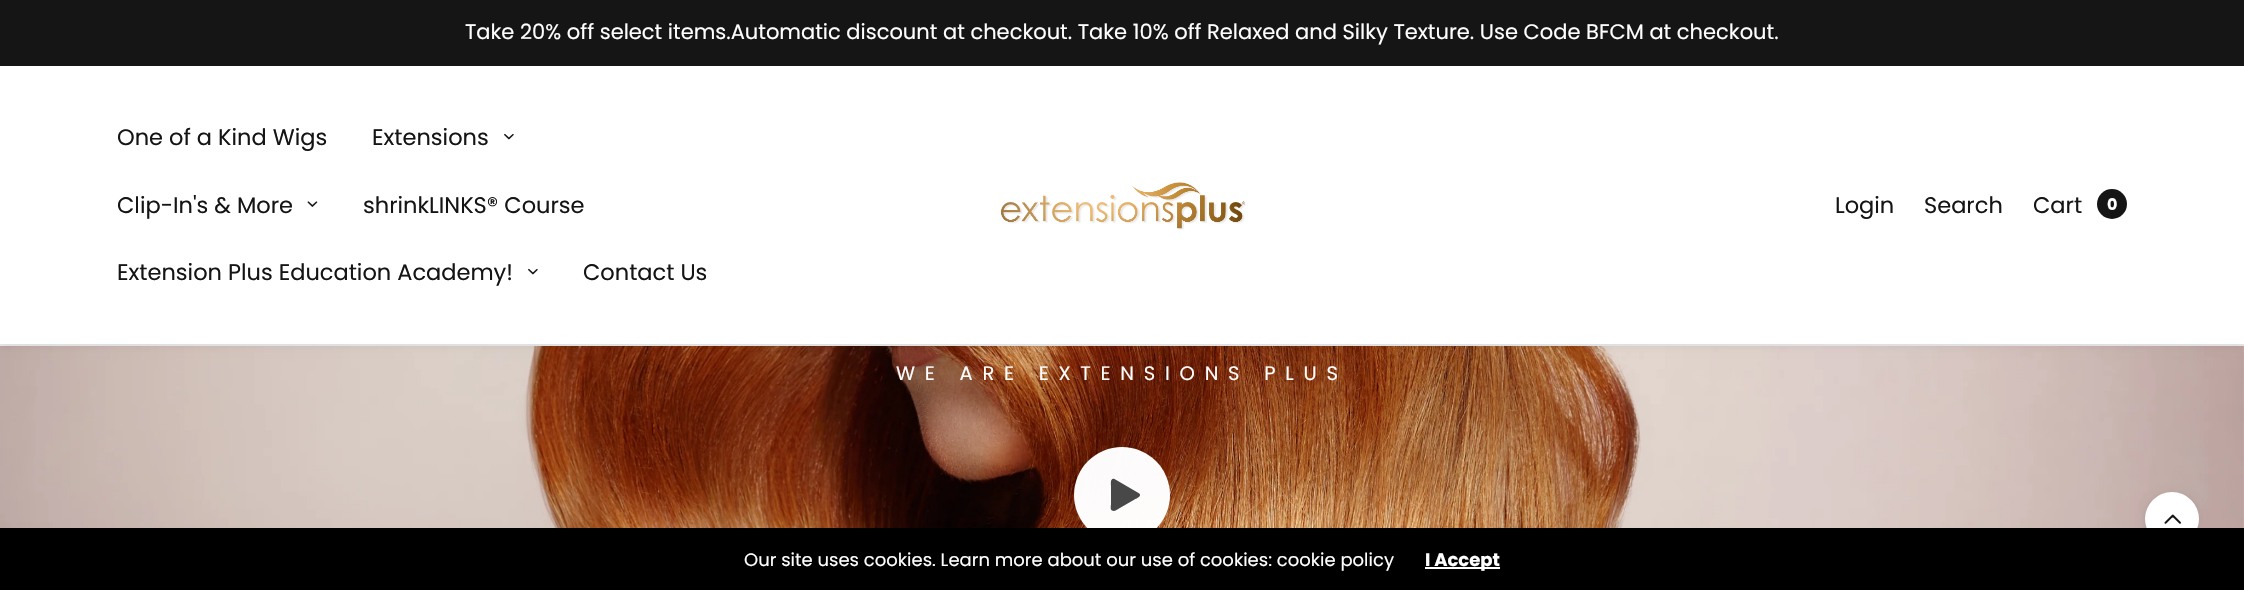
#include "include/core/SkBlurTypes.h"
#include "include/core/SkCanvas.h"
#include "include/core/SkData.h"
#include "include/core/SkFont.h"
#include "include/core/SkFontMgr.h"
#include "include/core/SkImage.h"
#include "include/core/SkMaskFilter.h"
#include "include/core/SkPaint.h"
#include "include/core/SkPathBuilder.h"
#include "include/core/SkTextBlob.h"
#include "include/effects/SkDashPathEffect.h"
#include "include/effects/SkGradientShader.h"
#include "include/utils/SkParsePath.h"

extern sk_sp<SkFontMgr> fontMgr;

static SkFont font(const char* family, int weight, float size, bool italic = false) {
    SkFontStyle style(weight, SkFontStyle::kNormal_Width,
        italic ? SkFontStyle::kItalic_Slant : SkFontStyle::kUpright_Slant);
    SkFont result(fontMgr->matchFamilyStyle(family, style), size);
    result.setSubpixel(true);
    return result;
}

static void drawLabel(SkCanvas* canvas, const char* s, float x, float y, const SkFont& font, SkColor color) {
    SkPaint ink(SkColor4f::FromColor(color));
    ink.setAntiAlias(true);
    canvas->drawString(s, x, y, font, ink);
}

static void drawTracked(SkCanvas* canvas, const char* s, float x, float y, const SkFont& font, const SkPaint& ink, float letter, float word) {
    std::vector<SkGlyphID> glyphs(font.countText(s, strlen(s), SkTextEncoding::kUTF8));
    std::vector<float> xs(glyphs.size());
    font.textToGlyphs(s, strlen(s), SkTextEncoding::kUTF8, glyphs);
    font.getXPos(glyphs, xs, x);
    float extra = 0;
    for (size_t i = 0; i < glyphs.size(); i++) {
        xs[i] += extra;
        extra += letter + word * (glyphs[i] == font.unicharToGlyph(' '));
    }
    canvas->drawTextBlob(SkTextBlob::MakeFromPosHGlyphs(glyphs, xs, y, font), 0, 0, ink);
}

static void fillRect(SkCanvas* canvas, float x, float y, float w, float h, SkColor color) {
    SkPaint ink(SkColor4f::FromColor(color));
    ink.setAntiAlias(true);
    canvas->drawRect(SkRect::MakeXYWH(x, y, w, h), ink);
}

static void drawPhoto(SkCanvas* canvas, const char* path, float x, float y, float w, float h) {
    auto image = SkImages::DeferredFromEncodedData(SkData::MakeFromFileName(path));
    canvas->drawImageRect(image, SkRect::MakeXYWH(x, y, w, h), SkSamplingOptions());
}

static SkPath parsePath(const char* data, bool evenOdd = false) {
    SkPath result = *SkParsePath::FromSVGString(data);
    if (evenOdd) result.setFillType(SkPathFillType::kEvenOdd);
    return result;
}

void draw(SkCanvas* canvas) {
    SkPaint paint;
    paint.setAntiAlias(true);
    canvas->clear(0xFFFFFFFF);
    fillRect(canvas, 0, 344, 2244, 2, 0xFFEAEAEA);
    drawPhoto(canvas, "assets/img4.png", 0, 346, 2244, 182);
    canvas->save();
    canvas->clipPath(parsePath("M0 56H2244V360H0ZM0 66H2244V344H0Z", true), true);
    paint.setColor(0x0F000000);
    paint.setMaskFilter(SkMaskFilter::MakeBlur(kNormal_SkBlurStyle, 4));
    canvas->drawRect(SkRect::MakeXYWH(0, 69, 2244, 278), paint);
    paint.setMaskFilter(nullptr);
    canvas->restore();
    fillRect(canvas, 0, 0, 2244, 66, 0xFF151515);
    SkFont font1 = font("Poppins", 400, 21);
    drawLabel(canvas, "Take 20% off select items.Automatic discount at checkout. Take 10% off Relaxed and Silky Texture. Use Code BFCM at checkout.", 465, 39, font1, 0xFFFFFFFF);
    SkFont font2 = font("Poppins", 400, 22.5f);
    drawLabel(canvas, "One of a Kind Wigs", 117, 145, font2, 0xFF151515);
    drawLabel(canvas, "Extensions", 372, 145, font2, 0xFF151515);
    drawPhoto(canvas, "assets/img1.png", 504, 133, 10, 7);
    drawLabel(canvas, "Clip-In's & More", 117, 213, font2, 0xFF151515);
    drawPhoto(canvas, "assets/img2.png", 307, 201, 11, 6);
    drawLabel(canvas, "shrinkLINKS® Course", 363, 213, font2, 0xFF151515);
    drawLabel(canvas, "Extension Plus Education Academy!", 117, 280, font2, 0xFF151515);
    drawPhoto(canvas, "assets/img1.png", 528, 268, 10, 7);
    drawLabel(canvas, "Contact Us", 583, 280, font2, 0xFF151515);
    drawPhoto(canvas, "assets/img3.png", 1000, 182, 246, 48);
    drawLabel(canvas, "Login", 1835, 213, font2, 0xFF151515);
    drawLabel(canvas, "Search", 1924, 213, font2, 0xFF151515);
    drawLabel(canvas, "Cart", 2033, 213, font2, 0xFF151515);
    paint.setColor(0xFF151515);
    canvas->drawCircle(2112, 204, 15, paint);
    SkFont font3 = font("Poppins", 700, 16);
    drawLabel(canvas, "0", 2107, 210, font3, 0xFFFFFFFF);
    SkFont font4 = font("Poppins", 400, 19.5f);
    paint.setColor(0xFFFFFFFF);
    drawTracked(canvas, "WE ARE EXTENSIONS PLUS", 896, 380, font4, paint, 9.75f, 0);
    paint.setColor(0xFAFFFFFF);
    canvas->drawCircle(1122, 495, 48, paint);
    paint.setColor(0xFF484848);
    canvas->drawPath(parsePath("M1138.5 493L1114.5 479C1110 477.5 1111 484 1111 486V504C1111 505.5 1110 509.5 1112 510.5C1114.5 512 1117 509.5 1119 508.5L1134.5 499.5C1136 498.5 1140.5 497 1140 494.5C1139.5 494 1139 493 1138.5 493Z"), paint);
    paint.setColor(0x1A000000);
    paint.setMaskFilter(SkMaskFilter::MakeBlur(kNormal_SkBlurStyle, 4.5f));
    canvas->drawRoundRect(SkRect::MakeXYWH(2145, 494, 54, 54), 27, 27, paint);
    paint.setMaskFilter(nullptr);
    paint.setColor(0xFFFFFFFF);
    canvas->drawCircle(2172, 519, 27, paint);
    fillRect(canvas, 0, 528, 2244, 62, 0xFF000000);
    SkFont font5 = font("Poppins", 400, 18);
    drawLabel(canvas, "Our site uses cookies. Learn more about our use of cookies: cookie policy", 744, 566, font5, 0xFFFFFFFF);
    fillRect(canvas, 1425, 567, 75, 2, 0xFFFFFFFF);
    SkFont font6 = font("Poppins", 700, 18);
    drawLabel(canvas, "I Accept", 1425, 566, font6, 0xFFFFFFFF);
    drawPhoto(canvas, "assets/img5.png", 2164, 514, 17, 10);
}
